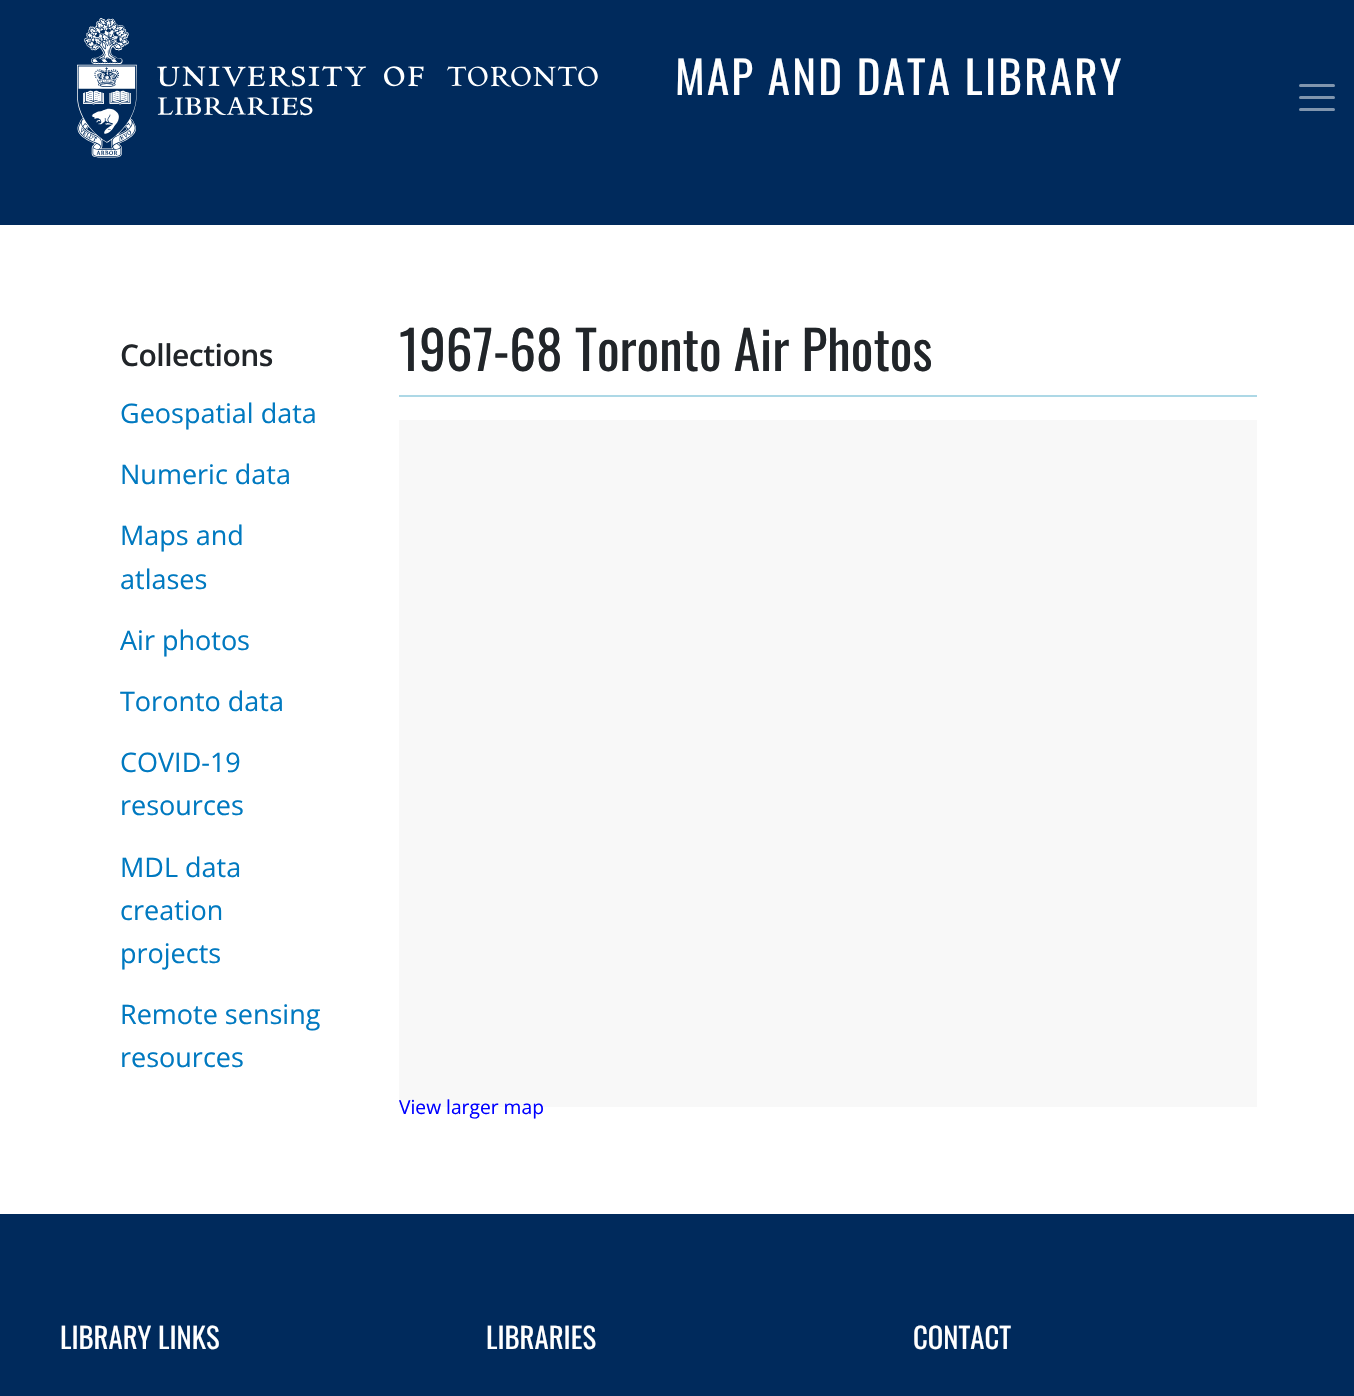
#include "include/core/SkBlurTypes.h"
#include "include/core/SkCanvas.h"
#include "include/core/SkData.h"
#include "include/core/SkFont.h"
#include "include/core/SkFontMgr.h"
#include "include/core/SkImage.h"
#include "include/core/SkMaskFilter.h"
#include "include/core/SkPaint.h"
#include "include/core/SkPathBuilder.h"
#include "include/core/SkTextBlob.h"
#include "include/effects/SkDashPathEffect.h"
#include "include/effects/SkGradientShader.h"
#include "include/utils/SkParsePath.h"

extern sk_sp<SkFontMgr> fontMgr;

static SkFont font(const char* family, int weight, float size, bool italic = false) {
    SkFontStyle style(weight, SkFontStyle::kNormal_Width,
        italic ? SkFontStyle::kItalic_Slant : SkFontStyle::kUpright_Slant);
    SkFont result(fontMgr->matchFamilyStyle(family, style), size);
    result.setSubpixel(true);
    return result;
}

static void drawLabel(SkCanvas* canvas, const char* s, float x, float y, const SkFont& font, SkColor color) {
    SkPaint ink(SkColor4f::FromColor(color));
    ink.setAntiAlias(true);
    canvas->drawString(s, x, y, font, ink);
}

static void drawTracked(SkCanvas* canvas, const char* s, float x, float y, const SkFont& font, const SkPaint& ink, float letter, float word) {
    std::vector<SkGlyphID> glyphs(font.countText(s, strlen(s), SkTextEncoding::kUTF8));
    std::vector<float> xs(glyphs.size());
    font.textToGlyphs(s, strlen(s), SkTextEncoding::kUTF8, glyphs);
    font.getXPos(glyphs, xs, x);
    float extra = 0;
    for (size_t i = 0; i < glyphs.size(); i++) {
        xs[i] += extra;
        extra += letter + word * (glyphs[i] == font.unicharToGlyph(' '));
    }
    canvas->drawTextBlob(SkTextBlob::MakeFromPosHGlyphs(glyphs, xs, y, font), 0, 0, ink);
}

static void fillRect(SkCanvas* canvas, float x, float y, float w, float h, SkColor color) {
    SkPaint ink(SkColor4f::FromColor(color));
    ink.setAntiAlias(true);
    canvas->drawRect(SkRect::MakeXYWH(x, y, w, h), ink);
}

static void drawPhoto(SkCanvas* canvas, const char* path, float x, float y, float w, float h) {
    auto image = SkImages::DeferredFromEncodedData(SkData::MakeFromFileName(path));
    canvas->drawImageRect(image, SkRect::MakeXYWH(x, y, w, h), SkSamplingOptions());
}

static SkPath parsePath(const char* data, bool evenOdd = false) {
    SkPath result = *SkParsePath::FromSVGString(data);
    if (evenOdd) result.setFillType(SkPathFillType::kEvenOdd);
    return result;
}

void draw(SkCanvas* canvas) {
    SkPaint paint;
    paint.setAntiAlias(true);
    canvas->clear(0xFFFFFFFF);
    fillRect(canvas, 0, 0, 1354, 225, 0xFF002A5C);
    drawPhoto(canvas, "assets/img1.png", 77, 18, 521, 140);
    SkFont font1 = font("Oswald", 400, 45);
    paint.setColor(0xFFFFFFFF);
    drawTracked(canvas, "MAP AND DATA LIBRARY", 675, 95, font1, paint, 2.25f, 0);
    paint.setStroke(true);
    paint.setStrokeWidth(3);
    paint.setStrokeCap(SkPaint::kRound_Cap);
    paint.setColor(0xFF8095AE);
    canvas->drawPath(parsePath("M1300.5 85.5H1333.5M1300.5 97.5H1333.5M1300.5 109.5H1333.5"), paint);
    SkFont font2 = font("Open Sans", 600, 30);
    paint.setStroke(false);
    paint.setColor(0xFF212529);
    drawTracked(canvas, "Collections", 120, 366, font2, paint, -0.5f, 0);
    SkFont font3 = font("Open Sans", 400, 27);
    drawLabel(canvas, "Geospatial data", 120, 423, font3, 0xFF0079C0);
    drawLabel(canvas, "Numeric data", 120, 484, font3, 0xFF0079C0);
    drawLabel(canvas, "Maps and", 120, 545, font3, 0xFF0079C0);
    drawLabel(canvas, "atlases", 120, 589, font3, 0xFF0079C0);
    drawLabel(canvas, "Air photos", 120, 650, font3, 0xFF0079C0);
    drawLabel(canvas, "Toronto data", 120, 711, font3, 0xFF0079C0);
    drawLabel(canvas, "COVID-19", 120, 772, font3, 0xFF0079C0);
    drawLabel(canvas, "resources", 120, 815, font3, 0xFF0079C0);
    drawLabel(canvas, "MDL data", 120, 877, font3, 0xFF0079C0);
    drawLabel(canvas, "creation", 120, 920, font3, 0xFF0079C0);
    drawLabel(canvas, "projects", 120, 963, font3, 0xFF0079C0);
    drawLabel(canvas, "Remote sensing", 120, 1024, font3, 0xFF0079C0);
    drawLabel(canvas, "resources", 120, 1067, font3, 0xFF0079C0);
    fillRect(canvas, 399, 395, 858, 2, 0xFFADD8E6);
    SkFont font4 = font("Oswald", 400, 53.25f);
    drawLabel(canvas, "1967-68 Toronto Air Photos", 399, 371, font4, 0xFF212529);
    fillRect(canvas, 399, 420, 858, 687, 0xFFF8F8F8);
    SkFont font5 = font("Open Sans", 400, 19.25f);
    drawLabel(canvas, "View larger map", 399, 1114, font5, 0xFF0000FF);
    fillRect(canvas, 0, 1214, 1354, 182, 0xFF002A5C);
    SkFont font6 = font("Oswald", 400, 28.75f);
    drawLabel(canvas, "LIBRARY LINKS", 60, 1349, font6, 0xFFFFFFFF);
    drawLabel(canvas, "LIBRARIES", 486, 1349, font6, 0xFFFFFFFF);
    drawLabel(canvas, "CONTACT", 913, 1349, font6, 0xFFFFFFFF);
}
